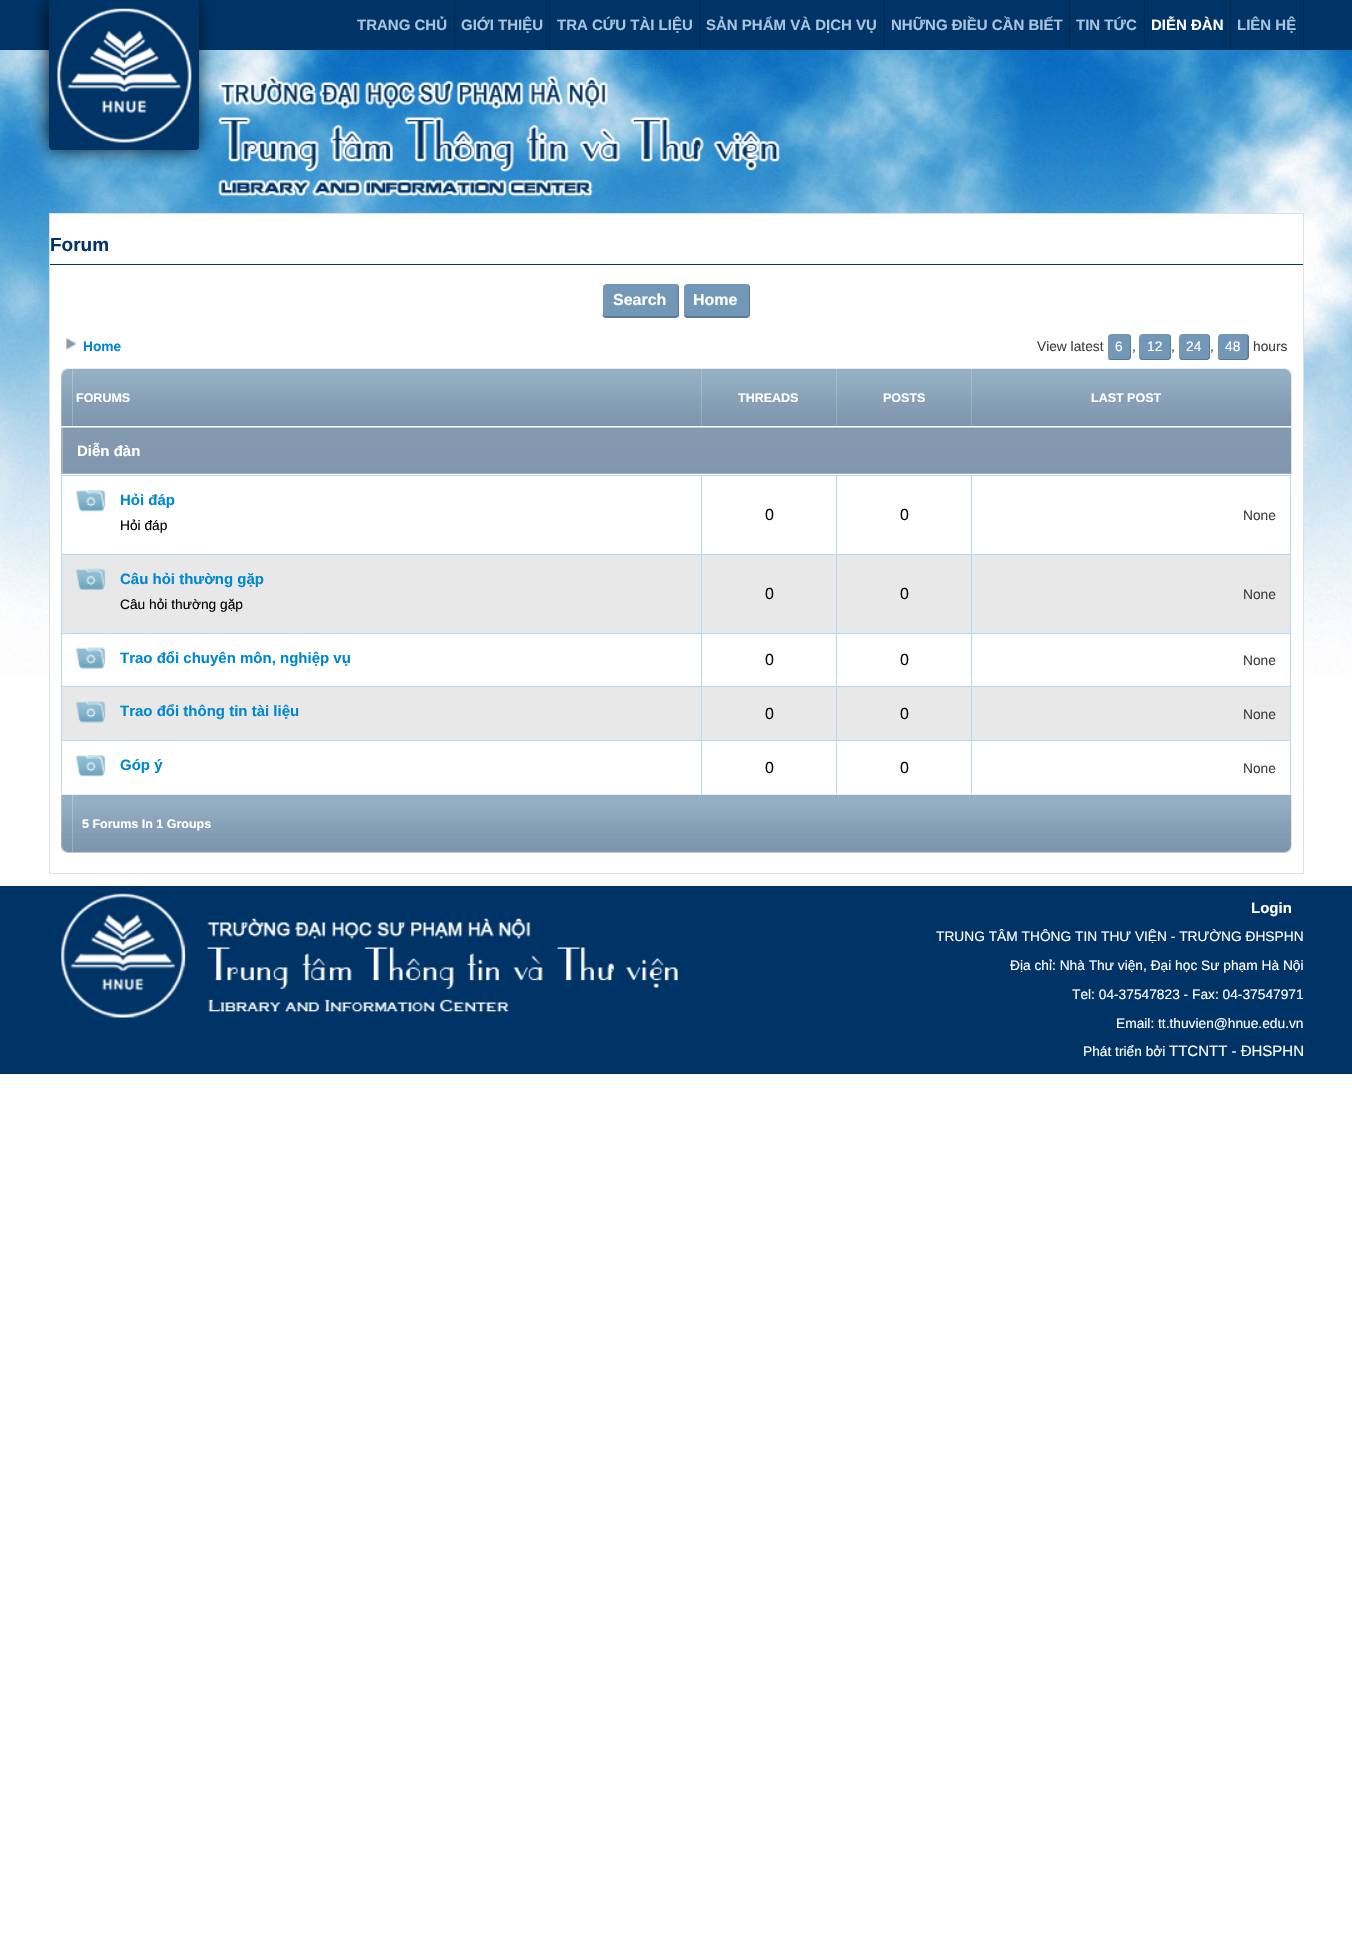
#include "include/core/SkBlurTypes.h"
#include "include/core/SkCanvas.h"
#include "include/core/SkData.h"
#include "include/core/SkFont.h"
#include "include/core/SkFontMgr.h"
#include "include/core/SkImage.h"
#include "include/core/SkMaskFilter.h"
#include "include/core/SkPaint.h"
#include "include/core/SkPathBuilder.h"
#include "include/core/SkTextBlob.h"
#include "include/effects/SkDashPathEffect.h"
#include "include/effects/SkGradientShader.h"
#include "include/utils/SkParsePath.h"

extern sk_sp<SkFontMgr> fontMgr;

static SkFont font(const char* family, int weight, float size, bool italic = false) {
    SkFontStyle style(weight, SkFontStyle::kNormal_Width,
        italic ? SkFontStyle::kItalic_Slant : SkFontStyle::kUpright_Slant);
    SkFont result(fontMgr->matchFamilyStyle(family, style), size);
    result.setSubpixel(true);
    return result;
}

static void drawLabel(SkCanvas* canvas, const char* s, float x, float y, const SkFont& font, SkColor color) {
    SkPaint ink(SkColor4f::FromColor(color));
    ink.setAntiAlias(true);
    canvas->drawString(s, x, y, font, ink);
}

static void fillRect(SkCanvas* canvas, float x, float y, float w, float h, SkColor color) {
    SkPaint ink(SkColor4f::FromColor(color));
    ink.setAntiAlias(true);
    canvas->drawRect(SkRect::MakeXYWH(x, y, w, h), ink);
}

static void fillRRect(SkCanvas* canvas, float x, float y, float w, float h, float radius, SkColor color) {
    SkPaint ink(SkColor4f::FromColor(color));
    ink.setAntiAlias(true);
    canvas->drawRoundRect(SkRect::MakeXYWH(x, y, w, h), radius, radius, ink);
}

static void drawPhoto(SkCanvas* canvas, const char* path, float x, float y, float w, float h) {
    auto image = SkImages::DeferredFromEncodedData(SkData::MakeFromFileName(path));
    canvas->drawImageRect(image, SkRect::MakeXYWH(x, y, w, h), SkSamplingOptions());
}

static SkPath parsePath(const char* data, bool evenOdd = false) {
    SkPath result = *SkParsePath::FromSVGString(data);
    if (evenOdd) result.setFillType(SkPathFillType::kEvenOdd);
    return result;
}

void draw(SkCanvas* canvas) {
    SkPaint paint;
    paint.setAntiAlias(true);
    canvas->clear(0xFFFFFFFF);
    fillRect(canvas, 0, 0, 1352, 50, 0xFF003366);
    drawPhoto(canvas, "assets/img2.png", 0, 50, 1352, 625);
    drawPhoto(canvas, "assets/img3.png", 218, 76, 563, 121);
    paint.setColor(0xFF000000);
    paint.setMaskFilter(SkMaskFilter::MakeBlur(kNormal_SkBlurStyle, 9.5f));
    canvas->drawRoundRect(SkRect::MakeXYWH(50, 3, 145, 145), 1, 1, paint);
    paint.setMaskFilter(nullptr);
    fillRRect(canvas, 49, 0, 150, 150, 4, 0xFF003366);
    drawPhoto(canvas, "assets/img1.png", 57, 8, 135, 135);
    fillRect(canvas, 454, 0, 1, 50, 0xFF04294C);
    SkFont font1 = font("Liberation Sans", 700, 15);
    drawLabel(canvas, "TRANG CHỦ", 357, 30, font1, 0xFFA8C5E0);
    fillRect(canvas, 549, 0, 1, 50, 0xFF04294C);
    drawLabel(canvas, "GIỚI THIỆU", 461, 30, font1, 0xFFA8C5E0);
    fillRect(canvas, 699, 0, 1, 50, 0xFF04294C);
    drawLabel(canvas, "TRA CỨU TÀI LIỆU", 557, 30, font1, 0xFFA8C5E0);
    fillRect(canvas, 884, 0, 1, 50, 0xFF04294C);
    drawLabel(canvas, "SẢN PHẨM VÀ DỊCH VỤ", 706, 30, font1, 0xFFA8C5E0);
    fillRect(canvas, 1069, 0, 1, 50, 0xFF04294C);
    drawLabel(canvas, "NHỮNG ĐIỀU CẦN BIẾT", 891, 30, font1, 0xFFA8C5E0);
    fillRect(canvas, 1144, 0, 1, 50, 0xFF04294C);
    drawLabel(canvas, "TIN TỨC", 1076, 30, font1, 0xFFA8C5E0);
    fillRect(canvas, 1230, 0, 1, 50, 0xFF04294C);
    drawLabel(canvas, "DIỄN ĐÀN", 1151, 30, font1, 0xFFFFFFFF);
    fillRect(canvas, 1303, 0, 1, 50, 0xFF04294C);
    drawLabel(canvas, "LIÊN HỆ", 1237, 30, font1, 0xFFA8C5E0);
    fillRect(canvas, 50, 214, 1253, 461, 0xFFFFFFFF);
    paint.setStroke(true);
    paint.setStrokeWidth(1);
    paint.setColor(0xFFE0E0E0);
    canvas->drawRect(SkRect::MakeXYWH(49.5f, 213.5f, 1254, 660), paint);
    fillRect(canvas, 50, 264, 1253, 1, 0xFF003366);
    SkFont font2 = font("Liberation Sans", 700, 19);
    drawLabel(canvas, "Forum", 50, 251, font2, 0xFF003366);
    fillRRect(canvas, 603, 284, 76, 34, 4, 0xFF7397B7);
    paint.setStroke(false);
    paint.setColor(0xFF5C7992);
    canvas->drawPath(parsePath("M606 284H675C677 284 679 285 679 288V314C679 316 677 318 675 318H606C604 318 602 316 602 314V288C602 285 604 284 606 284ZM606 284H675C676 284 678 285 678 288V314C678 315 676 316 675 316H606C604 316 602 315 602 314V288C602 285 604 284 606 284Z", true), paint);
    SkFont font3 = font("Liberation Sans", 700, 16);
    drawLabel(canvas, "Search", 613, 305, font3, 0xFFFFFFFF);
    fillRRect(canvas, 684, 284, 66, 34, 4, 0xFF7397B7);
    canvas->drawPath(parsePath("M688 284H746C748 284 750 285 750 288V314C750 316 748 318 746 318H688C685 318 684 316 684 314V288C684 285 685 284 688 284ZM688 284H746C748 284 749 285 749 288V314C749 315 748 316 746 316H688C685 316 684 315 684 314V288C684 285 685 284 688 284Z", true), paint);
    drawLabel(canvas, "Home", 693, 305, font3, 0xFFFFFFFF);
    drawPhoto(canvas, "assets/img4.png", 66, 338, 11, 12);
    SkFont font4 = font("Liberation Sans", 700, 13.75f);
    drawLabel(canvas, "Home", 83, 351, font4, 0xFF0088CE);
    SkFont font5 = font("Liberation Sans", 400, 13.75f);
    drawLabel(canvas, "View latest", 1037, 351, font5, 0xFF403F3F);
    fillRRect(canvas, 1108, 334, 23, 26, 4, 0xFF7397B7);
    canvas->drawPath(parsePath("M1111 334H1127.5C1129.5 334 1131 335.5 1131 337.5V356C1131 358.5 1129.5 360 1127.5 360H1111C1109 360 1107.5 358.5 1107.5 356V337.5C1107.5 335.5 1109 334 1111 334ZM1111 334H1127.5C1129 334 1130 335.5 1130 337.5V356C1130 357.5 1129 359 1127.5 359H1111C1109 359 1107.5 357.5 1107.5 356V337.5C1107.5 335.5 1109 334 1111 334Z", true), paint);
    drawLabel(canvas, "6", 1115, 351, font5, 0xFFFFFFFF);
    drawLabel(canvas, ",", 1132, 351, font5, 0xFF403F3F);
    fillRRect(canvas, 1139, 334, 32, 26, 4, 0xFF7397B7);
    canvas->drawPath(parsePath("M1142.5 334H1167.5C1169.5 334 1171 335.5 1171 337.5V356C1171 358.5 1169.5 360 1167.5 360H1142.5C1140.5 360 1139 358.5 1139 356V337.5C1139 335.5 1140.5 334 1142.5 334ZM1142.5 334H1167.5C1169 334 1170 335.5 1170 337.5V356C1170 357.5 1169 359 1167.5 359H1142.5C1140.5 359 1139 357.5 1139 356V337.5C1139 335.5 1140.5 334 1142.5 334Z", true), paint);
    drawLabel(canvas, "12", 1147, 351, font5, 0xFFFFFFFF);
    drawLabel(canvas, ",", 1171, 351, font5, 0xFF403F3F);
    fillRRect(canvas, 1179, 334, 31, 26, 4, 0xFF7397B7);
    canvas->drawPath(parsePath("M1182.5 334H1206C1208.5 334 1210 335.5 1210 337.5V356C1210 358.5 1208.5 360 1206 360H1182.5C1180.5 360 1179 358.5 1179 356V337.5C1179 335.5 1180.5 334 1182.5 334ZM1182.5 334H1206C1207.5 334 1209 335.5 1209 337.5V356C1209 357.5 1207.5 359 1206 359H1182.5C1180.5 359 1179 357.5 1179 356V337.5C1179 335.5 1180.5 334 1182.5 334Z", true), paint);
    drawLabel(canvas, "24", 1186, 351, font5, 0xFFFFFFFF);
    drawLabel(canvas, ",", 1210, 351, font5, 0xFF403F3F);
    fillRRect(canvas, 1218, 334, 31, 26, 4, 0xFF7397B7);
    canvas->drawPath(parsePath("M1221 334H1245C1247 334 1249 335.5 1249 337.5V356C1249 358.5 1247 360 1245 360H1221C1219 360 1217.5 358.5 1217.5 356V337.5C1217.5 335.5 1219 334 1221 334ZM1221 334H1245C1246.5 334 1247.5 335.5 1247.5 337.5V356C1247.5 357.5 1246.5 359 1245 359H1221C1219 359 1217.5 357.5 1217.5 356V337.5C1217.5 335.5 1219 334 1221 334Z", true), paint);
    drawLabel(canvas, "48", 1225, 351, font5, 0xFFFFFFFF);
    drawLabel(canvas, "hours", 1253, 351, font5, 0xFF403F3F);
    drawPhoto(canvas, "assets/img5.png", 61, 368, 12, 59);
    drawPhoto(canvas, "assets/img7.png", 701, 368, 136, 58);
    drawPhoto(canvas, "assets/img6.png", 72, 368, 630, 58);
    SkFont font6 = font("Liberation Sans", 700, 12.5f);
    drawLabel(canvas, "FORUMS", 76, 402, font6, 0xFFFFFFFF);
    drawLabel(canvas, "THREADS", 738, 402, font6, 0xFFFFFFFF);
    drawPhoto(canvas, "assets/img8.png", 836, 368, 136, 58);
    drawLabel(canvas, "POSTS", 883, 402, font6, 0xFFFFFFFF);
    drawPhoto(canvas, "assets/img9.png", 971, 368, 309, 58);
    drawLabel(canvas, "LAST POST", 1091, 402, font6, 0xFFFFFFFF);
    drawPhoto(canvas, "assets/img10.png", 1280, 368, 12, 59);
    drawPhoto(canvas, "assets/img11.png", 61, 427, 2, 47);
    fillRect(canvas, 61, 426, 1, 1, 0xFFFFFFFF);
    drawPhoto(canvas, "assets/img12.png", 62, 427, 1228, 47);
    fillRect(canvas, 63, 426, 1228, 1, 0xFFFFFFFF);
    drawLabel(canvas, "Diễn đàn", 77, 456, font1, 0xFFFFFFFF);
    drawPhoto(canvas, "assets/img13.png", 1290, 427, 2, 47);
    fillRect(canvas, 61, 475, 1230, 1, 0xFFB8D7F3);
    fillRect(canvas, 61, 475, 1, 79, 0xFFB8D7F3);
    drawPhoto(canvas, "assets/img14.png", 76, 490, 30, 22);
    drawLabel(canvas, "Hỏi đáp", 120, 505, font1, 0xFF0088CE);
    drawLabel(canvas, "Hỏi đáp", 120, 530, font5, 0xFF000000);
    fillRect(canvas, 701, 475, 1, 79, 0xFFB8D7F3);
    SkFont font7 = font("Liberation Sans", 400, 16);
    drawLabel(canvas, "0", 765, 520, font7, 0xFF000000);
    fillRect(canvas, 836, 475, 1, 79, 0xFFB8D7F3);
    drawLabel(canvas, "0", 900, 520, font7, 0xFF000000);
    fillRect(canvas, 1290, 475, 1, 79, 0xFFB8D7F3);
    fillRect(canvas, 971, 475, 1, 79, 0xFFB8D7F3);
    drawLabel(canvas, "None", 1243, 520, font5, 0xFF403F3F);
    fillRect(canvas, 62, 555, 639, 78, 0xFFE8E8E8);
    fillRect(canvas, 61, 554, 1230, 1, 0xFFB8D7F3);
    fillRect(canvas, 61, 554, 1, 79, 0xFFB8D7F3);
    drawPhoto(canvas, "assets/img15.png", 76, 568, 30, 22);
    drawLabel(canvas, "Câu hỏi thường gặp", 120, 584, font1, 0xFF0088CE);
    drawLabel(canvas, "Câu hỏi thường gặp", 120, 609, font5, 0xFF000000);
    fillRect(canvas, 702, 555, 134, 78, 0xFFE8E8E8);
    fillRect(canvas, 701, 554, 1, 79, 0xFFB8D7F3);
    drawLabel(canvas, "0", 765, 599, font7, 0xFF000000);
    fillRect(canvas, 837, 555, 134, 78, 0xFFE8E8E8);
    fillRect(canvas, 836, 554, 1, 79, 0xFFB8D7F3);
    drawLabel(canvas, "0", 900, 599, font7, 0xFF000000);
    fillRect(canvas, 972, 555, 318, 78, 0xFFE8E8E8);
    fillRect(canvas, 1290, 554, 1, 79, 0xFFB8D7F3);
    fillRect(canvas, 971, 554, 1, 79, 0xFFB8D7F3);
    drawLabel(canvas, "None", 1243, 599, font5, 0xFF403F3F);
    fillRect(canvas, 61, 633, 1230, 1, 0xFFB8D7F3);
    fillRect(canvas, 61, 633, 1, 53, 0xFFB8D7F3);
    drawPhoto(canvas, "assets/img16.png", 76, 647, 30, 22);
    drawLabel(canvas, "Trao đổi chuyên môn, nghiệp vụ", 120, 663, font1, 0xFF0088CE);
    fillRect(canvas, 701, 633, 1, 53, 0xFFB8D7F3);
    drawLabel(canvas, "0", 765, 665, font7, 0xFF000000);
    fillRect(canvas, 836, 633, 1, 53, 0xFFB8D7F3);
    drawLabel(canvas, "0", 900, 665, font7, 0xFF000000);
    fillRect(canvas, 1290, 633, 1, 53, 0xFFB8D7F3);
    fillRect(canvas, 971, 633, 1, 53, 0xFFB8D7F3);
    drawLabel(canvas, "None", 1243, 665, font5, 0xFF403F3F);
    fillRect(canvas, 62, 687, 639, 53, 0xFFE8E8E8);
    fillRect(canvas, 61, 686, 1230, 1, 0xFFB8D7F3);
    fillRect(canvas, 61, 686, 1, 54, 0xFFB8D7F3);
    drawPhoto(canvas, "assets/img17.png", 76, 701, 30, 22);
    drawLabel(canvas, "Trao đổi thông tin tài liệu", 120, 716, font1, 0xFF0088CE);
    fillRect(canvas, 702, 687, 134, 53, 0xFFE8E8E8);
    fillRect(canvas, 701, 686, 1, 54, 0xFFB8D7F3);
    drawLabel(canvas, "0", 765, 719, font7, 0xFF000000);
    fillRect(canvas, 837, 687, 134, 53, 0xFFE8E8E8);
    fillRect(canvas, 836, 686, 1, 54, 0xFFB8D7F3);
    drawLabel(canvas, "0", 900, 719, font7, 0xFF000000);
    fillRect(canvas, 972, 687, 318, 53, 0xFFE8E8E8);
    fillRect(canvas, 1290, 686, 1, 54, 0xFFB8D7F3);
    fillRect(canvas, 971, 686, 1, 54, 0xFFB8D7F3);
    drawLabel(canvas, "None", 1243, 719, font5, 0xFF403F3F);
    fillRect(canvas, 61, 740, 1230, 1, 0xFFB8D7F3);
    fillRect(canvas, 61, 740, 1, 54, 0xFFB8D7F3);
    drawPhoto(canvas, "assets/img14.png", 76, 755, 30, 22);
    drawLabel(canvas, "Góp ý", 120, 770, font1, 0xFF0088CE);
    fillRect(canvas, 701, 740, 1, 54, 0xFFB8D7F3);
    drawLabel(canvas, "0", 765, 773, font7, 0xFF000000);
    fillRect(canvas, 836, 740, 1, 54, 0xFFB8D7F3);
    drawLabel(canvas, "0", 900, 773, font7, 0xFF000000);
    fillRect(canvas, 1290, 740, 1, 54, 0xFFB8D7F3);
    fillRect(canvas, 971, 740, 1, 54, 0xFFB8D7F3);
    drawLabel(canvas, "None", 1243, 773, font5, 0xFF403F3F);
    drawPhoto(canvas, "assets/img18.png", 61, 795, 12, 58);
    fillRect(canvas, 61, 794, 1230, 1, 0xFFEEEEEE);
    drawPhoto(canvas, "assets/img19.png", 72, 795, 1208, 58);
    drawLabel(canvas, "5 Forums In 1 Groups", 82, 828, font6, 0xFFFFFFFF);
    drawPhoto(canvas, "assets/img20.png", 1280, 795, 12, 58);
    fillRect(canvas, 0, 886, 1352, 188, 0xFF003366);
    drawPhoto(canvas, "assets/img21.png", 61, 893, 618, 125);
    drawLabel(canvas, "Login", 1251, 913, font1, 0xFFFFFFFF);
    drawLabel(canvas, "TRUNG TÂM THÔNG TIN THƯ VIỆN - TRƯỜNG ĐHSPHN", 936, 941, font5, 0xFFFFFFFF);
    drawLabel(canvas, "Địa chỉ: Nhà Thư viện, Đại học Sư phạm Hà Nội", 1010, 970, font5, 0xFFFFFFFF);
    drawLabel(canvas, "Tel: 04-37547823 - Fax: 04-37547971", 1072, 999, font5, 0xFFFFFFFF);
    drawLabel(canvas, "Email: tt.thuvien@hnue.edu.vn", 1116, 1028, font5, 0xFFFFFFFF);
    drawLabel(canvas, "Phát triển bởi", 1083, 1056, font5, 0xFFFFFFFF);
    SkFont font8 = font("Liberation Sans", 400, 15);
    drawLabel(canvas, "TTCNTT - ĐHSPHN", 1169, 1056, font8, 0xFFFFFFFF);
}
